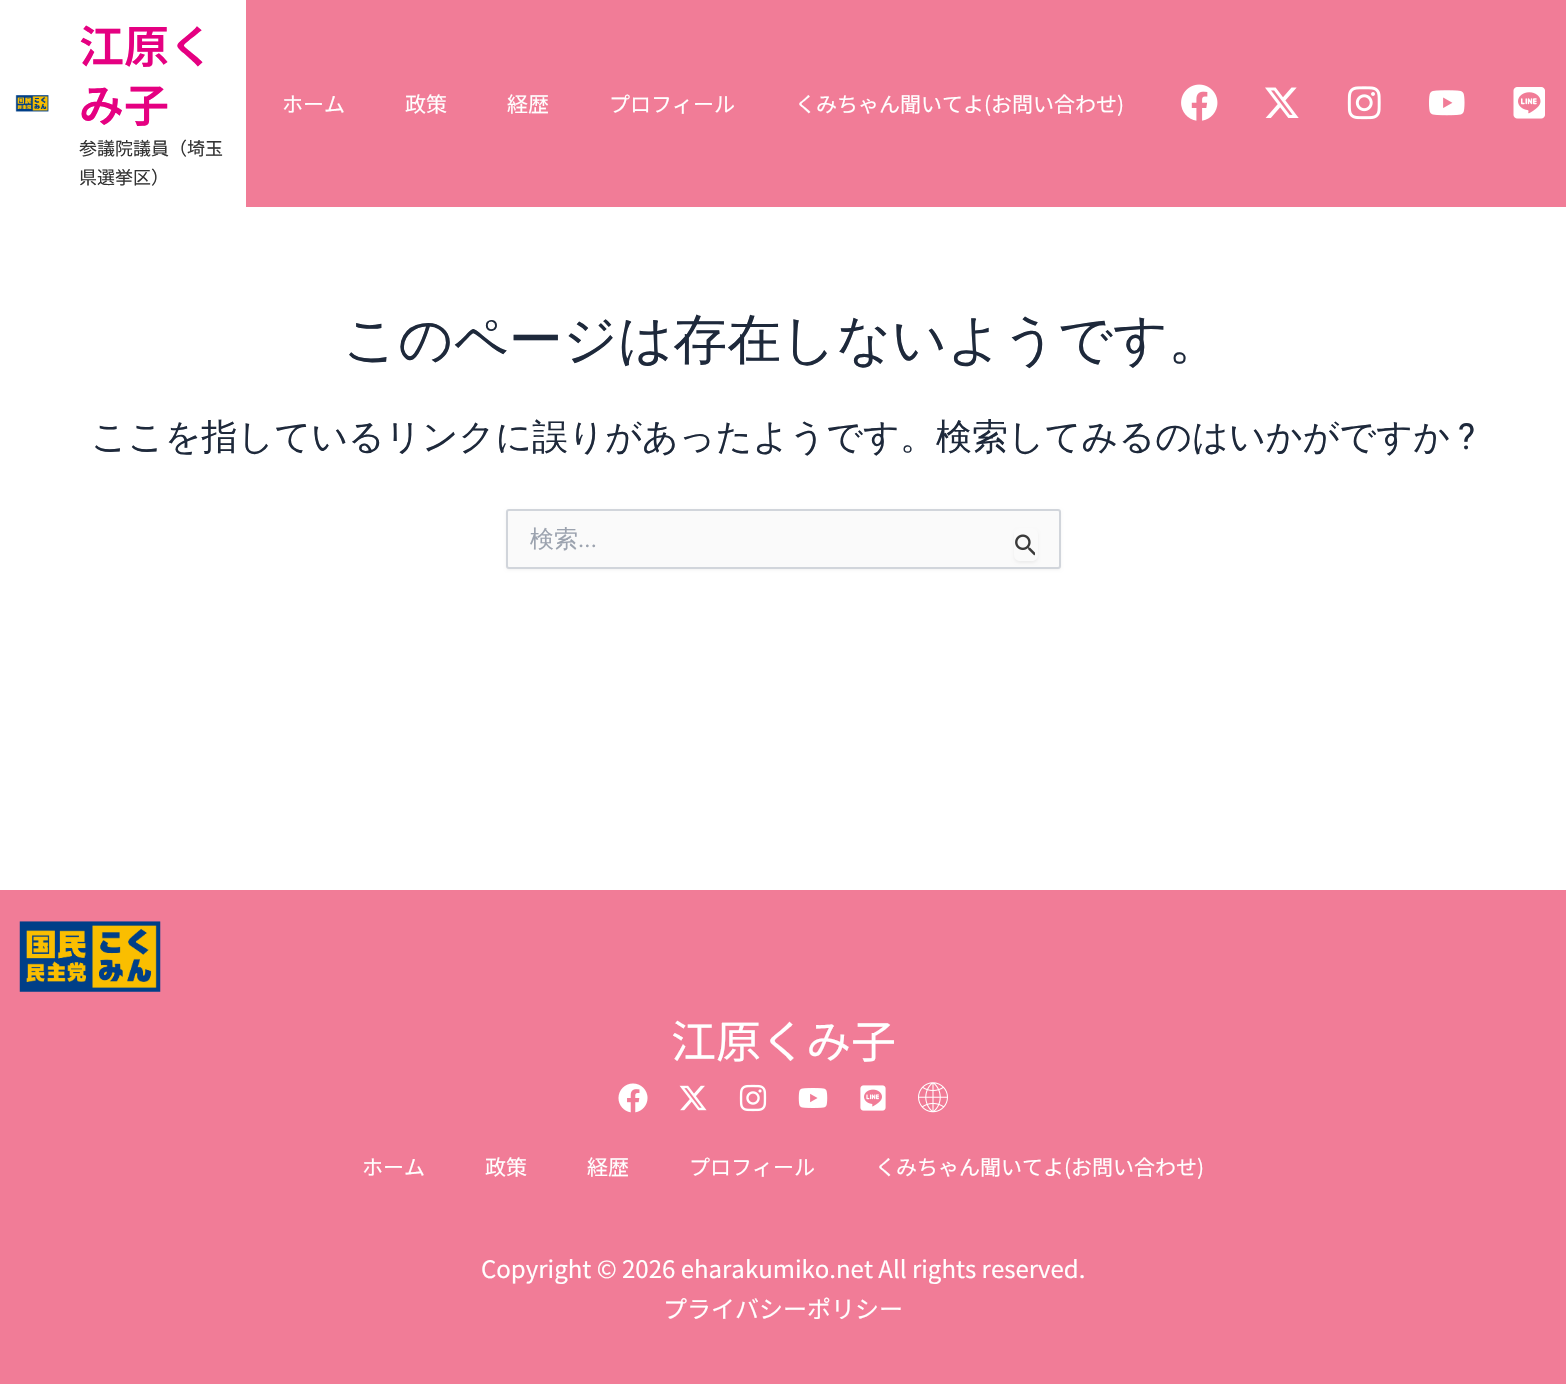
#include "include/core/SkBlurTypes.h"
#include "include/core/SkCanvas.h"
#include "include/core/SkData.h"
#include "include/core/SkFont.h"
#include "include/core/SkFontMgr.h"
#include "include/core/SkImage.h"
#include "include/core/SkMaskFilter.h"
#include "include/core/SkPaint.h"
#include "include/core/SkPathBuilder.h"
#include "include/core/SkTextBlob.h"
#include "include/effects/SkDashPathEffect.h"
#include "include/effects/SkGradientShader.h"
#include "include/utils/SkParsePath.h"

extern sk_sp<SkFontMgr> fontMgr;

static SkFont font(const char* family, int weight, float size, bool italic = false) {
    SkFontStyle style(weight, SkFontStyle::kNormal_Width,
        italic ? SkFontStyle::kItalic_Slant : SkFontStyle::kUpright_Slant);
    SkFont result(fontMgr->matchFamilyStyle(family, style), size);
    result.setSubpixel(true);
    return result;
}

static void drawLabel(SkCanvas* canvas, const char* s, float x, float y, const SkFont& font, SkColor color) {
    SkPaint ink(SkColor4f::FromColor(color));
    ink.setAntiAlias(true);
    canvas->drawString(s, x, y, font, ink);
}

static void fillRect(SkCanvas* canvas, float x, float y, float w, float h, SkColor color) {
    SkPaint ink(SkColor4f::FromColor(color));
    ink.setAntiAlias(true);
    canvas->drawRect(SkRect::MakeXYWH(x, y, w, h), ink);
}

static void drawPhoto(SkCanvas* canvas, const char* path, float x, float y, float w, float h) {
    auto image = SkImages::DeferredFromEncodedData(SkData::MakeFromFileName(path));
    canvas->drawImageRect(image, SkRect::MakeXYWH(x, y, w, h), SkSamplingOptions());
}

static SkPath parsePath(const char* data, bool evenOdd = false) {
    SkPath result = *SkParsePath::FromSVGString(data);
    if (evenOdd) result.setFillType(SkPathFillType::kEvenOdd);
    return result;
}

void draw(SkCanvas* canvas) {
    SkPaint paint;
    paint.setAntiAlias(true);
    canvas->clear(0xFFFFFFFF);
    drawPhoto(canvas, "assets/img1.png", 15, 95, 34, 17);
    SkFont font1 = font("Noto Sans JP", 600, 45);
    drawLabel(canvas, "江原く", 79, 63, font1, 0xFFE50081);
    drawLabel(canvas, "み子", 79, 122, font1, 0xFFE50081);
    SkFont font2 = font("Noto Sans JP", 400, 18);
    drawLabel(canvas, "参議院議員（埼玉", 79, 155, font2, 0xFF333333);
    drawLabel(canvas, "県選挙区）", 79, 184, font2, 0xFF333333);
    fillRect(canvas, 246, 0, 1320, 207, 0xFFF17C97);
    SkFont font3 = font("Noto Sans JP", 400, 21);
    drawLabel(canvas, "ホーム", 282, 112, font3, 0xFFFFFFFF);
    drawLabel(canvas, "政策", 405, 112, font3, 0xFFFFFFFF);
    drawLabel(canvas, "経歴", 507, 112, font3, 0xFFFFFFFF);
    drawLabel(canvas, "プロフィール", 609, 112, font3, 0xFFFFFFFF);
    drawLabel(canvas, "くみちゃん聞いてよ(お問い合わせ)", 795, 112, font3, 0xFFFFFFFF);
    drawPhoto(canvas, "assets/img2.png", 1181, 84, 37, 37);
    drawPhoto(canvas, "assets/img3.png", 1265, 87, 34, 31);
    drawPhoto(canvas, "assets/img4.png", 1347, 86, 34, 34);
    drawPhoto(canvas, "assets/img5.png", 1429, 90, 36, 26);
    drawPhoto(canvas, "assets/img6.png", 1513, 87, 32, 32);
    SkFont font4 = font("WenQuanYi Zen Hei", 500, 54);
    drawLabel(canvas, "このページは存在しないようです。", 343, 358, font4, 0xFF1E293B);
    SkFont font5 = font("WenQuanYi Zen Hei", 500, 36);
    drawLabel(canvas, "ここを指しているリンクに誤りがあったようです。検索してみるのはいかがですか", 91, 449, font5, 0xFF1E293B);
    SkFont font6 = font("Roboto", 400, 36);
    drawLabel(canvas, "?", 1458, 449, font6, 0xFF1E293B);
    paint.setColor(0x0D000000);
    paint.setMaskFilter(SkMaskFilter::MakeBlur(kNormal_SkBlurStyle, 1.5f));
    canvas->drawRoundRect(SkRect::MakeXYWH(506, 510, 555, 60), 3, 3, paint);
    paint.setMaskFilter(nullptr);
    paint.setColor(0xFFFAFAFA);
    canvas->drawRoundRect(SkRect::MakeXYWH(507, 510, 553, 58), 2, 2, paint);
    paint.setStroke(true);
    paint.setStrokeWidth(2);
    paint.setColor(0xFFD1D5DB);
    canvas->drawRoundRect(SkRect::MakeXYWH(507, 510, 553, 58), 2, 2, paint);
    SkFont font7 = font("WenQuanYi Zen Hei", 500, 24);
    drawLabel(canvas, "検索", 530, 547, font7, 0xFF9CA3AF);
    SkFont font8 = font("Roboto", 400, 24);
    drawLabel(canvas, "...", 578, 547, font8, 0xFF9CA3AF);
    canvas->save();
    canvas->clipPath(parsePath("M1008 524H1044V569H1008ZM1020 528H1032C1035.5 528 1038 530.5 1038 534V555C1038 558.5 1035.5 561 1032 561H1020C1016.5 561 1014 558.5 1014 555V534C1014 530.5 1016.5 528 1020 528Z", true), true);
    paint.setStroke(false);
    paint.setColor(0x0D000000);
    paint.setMaskFilter(SkMaskFilter::MakeBlur(kNormal_SkBlurStyle, 1.5f));
    canvas->drawRoundRect(SkRect::MakeXYWH(1014, 530, 24, 33), 6, 6, paint);
    paint.setMaskFilter(nullptr);
    canvas->restore();
    drawPhoto(canvas, "assets/img7.png", 1015, 534, 20, 22);
    fillRect(canvas, 0, 890, 1566, 494, 0xFFF17C97);
    drawPhoto(canvas, "assets/img8.png", 19, 921, 142, 71);
    SkFont font9 = font("Noto Sans JP", 400, 45);
    drawLabel(canvas, "江原くみ子", 671, 1058, font9, 0xFFFFFFFF);
    drawPhoto(canvas, "assets/img9.png", 618, 1083, 30, 30);
    drawPhoto(canvas, "assets/img10.png", 679, 1085, 28, 26);
    drawPhoto(canvas, "assets/img11.png", 739, 1084, 28, 28);
    drawPhoto(canvas, "assets/img12.png", 798, 1088, 30, 20);
    drawPhoto(canvas, "assets/img13.png", 860, 1085, 26, 26);
    drawPhoto(canvas, "assets/img14.png", 918, 1082, 30, 31);
    drawLabel(canvas, "ホーム", 362, 1175, font3, 0xFFFFFFFF);
    drawLabel(canvas, "政策", 485, 1175, font3, 0xFFFFFFFF);
    drawLabel(canvas, "経歴", 587, 1175, font3, 0xFFFFFFFF);
    drawLabel(canvas, "プロフィール", 689, 1175, font3, 0xFFFFFFFF);
    drawLabel(canvas, "くみちゃん聞いてよ(お問い合わせ)", 875, 1175, font3, 0xFFFFFFFF);
    SkFont font10 = font("Noto Sans JP", 400, 24);
    drawLabel(canvas, "Copyright © 2026 eharakumiko.net All rights reserved.", 481, 1278, font10, 0xFFFFFFFF);
    drawLabel(canvas, "プライバシーポリシー", 663, 1318, font10, 0xFFFFFFFF);
}
